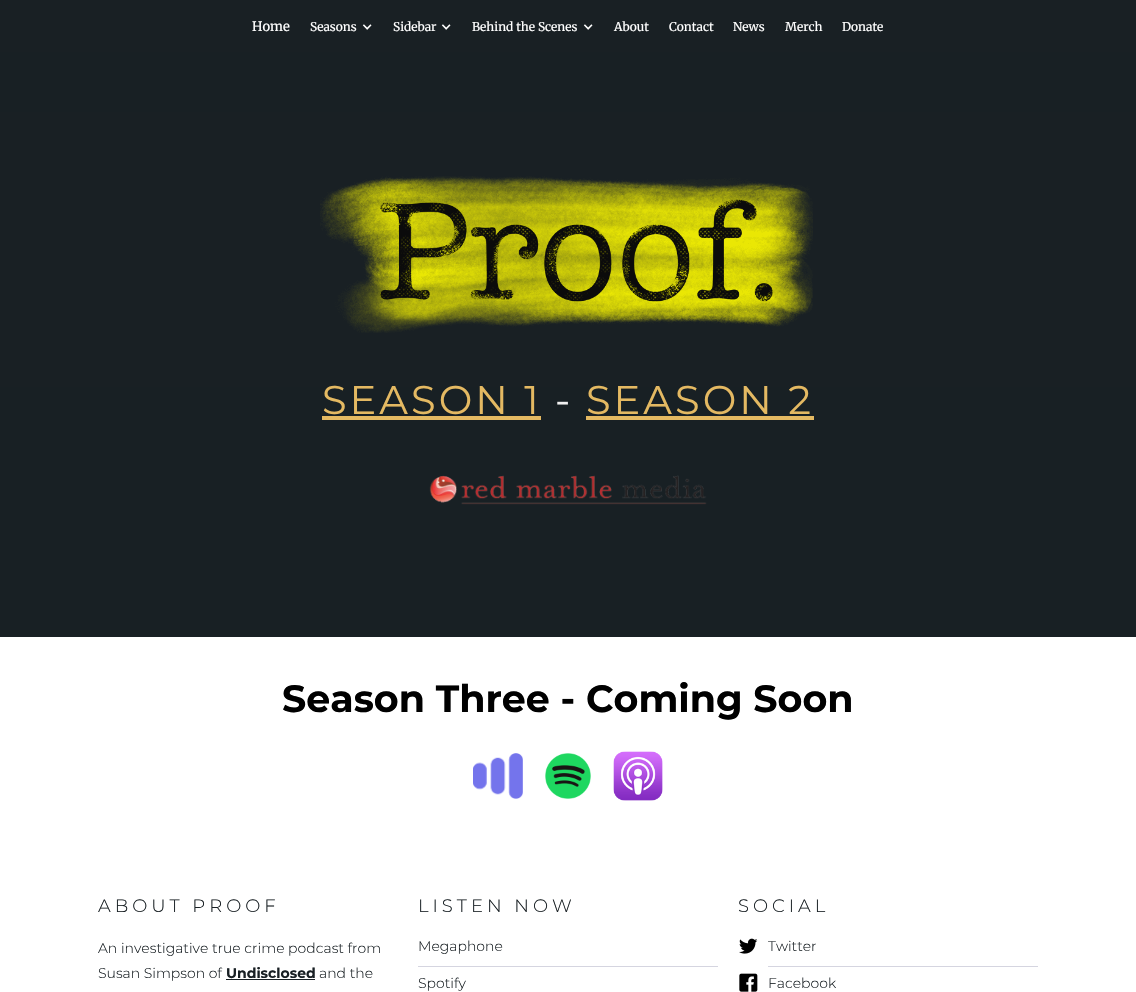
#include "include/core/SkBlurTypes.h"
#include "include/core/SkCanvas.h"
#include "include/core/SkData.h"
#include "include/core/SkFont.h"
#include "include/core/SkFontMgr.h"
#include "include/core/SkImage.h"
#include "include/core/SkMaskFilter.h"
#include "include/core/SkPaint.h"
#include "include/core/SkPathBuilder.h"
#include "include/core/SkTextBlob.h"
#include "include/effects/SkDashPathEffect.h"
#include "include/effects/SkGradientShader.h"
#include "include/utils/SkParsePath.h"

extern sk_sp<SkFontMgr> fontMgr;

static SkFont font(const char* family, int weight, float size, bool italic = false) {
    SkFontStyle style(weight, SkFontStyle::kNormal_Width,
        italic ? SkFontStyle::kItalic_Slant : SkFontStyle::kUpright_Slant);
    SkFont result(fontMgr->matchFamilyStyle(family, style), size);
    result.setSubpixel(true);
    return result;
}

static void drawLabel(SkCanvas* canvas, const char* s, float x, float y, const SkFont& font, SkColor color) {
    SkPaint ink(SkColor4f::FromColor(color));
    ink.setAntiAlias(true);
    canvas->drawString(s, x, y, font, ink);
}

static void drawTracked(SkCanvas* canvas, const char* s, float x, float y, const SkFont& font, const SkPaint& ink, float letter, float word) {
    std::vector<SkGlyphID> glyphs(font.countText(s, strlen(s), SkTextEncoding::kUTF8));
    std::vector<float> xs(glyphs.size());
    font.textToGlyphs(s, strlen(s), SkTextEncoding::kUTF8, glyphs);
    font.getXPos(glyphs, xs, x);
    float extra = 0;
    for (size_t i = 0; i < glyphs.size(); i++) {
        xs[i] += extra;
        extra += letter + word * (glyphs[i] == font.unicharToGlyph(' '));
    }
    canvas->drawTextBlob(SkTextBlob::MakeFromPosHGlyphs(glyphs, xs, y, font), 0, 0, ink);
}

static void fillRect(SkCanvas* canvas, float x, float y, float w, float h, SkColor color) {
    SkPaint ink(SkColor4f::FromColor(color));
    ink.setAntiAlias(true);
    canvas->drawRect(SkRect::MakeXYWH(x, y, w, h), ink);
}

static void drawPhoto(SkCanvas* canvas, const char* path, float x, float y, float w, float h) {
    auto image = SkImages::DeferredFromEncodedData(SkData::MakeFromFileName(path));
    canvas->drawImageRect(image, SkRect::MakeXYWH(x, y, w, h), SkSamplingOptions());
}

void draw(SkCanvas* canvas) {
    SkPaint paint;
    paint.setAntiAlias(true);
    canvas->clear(0xFFFFFFFF);
    fillRect(canvas, 0, 0, 1136, 52, 0xFF192024);
    SkFont font1 = font("Merriweather", 400, 13);
    drawLabel(canvas, "Home", 252, 31, font1, 0xFFFFFFFF);
    SkFont font2 = font("Merriweather", 400, 12);
    drawLabel(canvas, "Seasons", 310, 31, font2, 0xFFFFFFFF);
    drawPhoto(canvas, "assets/img1.png", 362, 24, 10, 6);
    drawLabel(canvas, "Sidebar", 393, 31, font2, 0xFFFFFFFF);
    drawPhoto(canvas, "assets/img1.png", 441, 24, 10, 6);
    drawLabel(canvas, "Behind the Scenes", 472, 31, font2, 0xFFFFFFFF);
    drawPhoto(canvas, "assets/img1.png", 583, 24, 10, 6);
    drawLabel(canvas, "About", 614, 31, font2, 0xFFFFFFFF);
    drawLabel(canvas, "Contact", 669, 31, font2, 0xFFFFFFFF);
    drawLabel(canvas, "News", 733, 31, font2, 0xFFFFFFFF);
    drawLabel(canvas, "Merch", 785, 31, font2, 0xFFFFFFFF);
    drawLabel(canvas, "Donate", 842, 31, font2, 0xFFFFFFFF);
    fillRect(canvas, 0, 52, 1136, 60, 0xFF182024);
    fillRect(canvas, 0, 112, 1136, 275, 0xFF192024);
    drawPhoto(canvas, "assets/img2.png", 320, 176, 493, 157);
    fillRect(canvas, 0, 387, 1136, 250, 0xFF182024);
    SkFont font3 = font("Montserrat", 400, 40);
    paint.setColor(0xFFE4B962);
    drawTracked(canvas, "SEASON 1", 322, 414, font3, paint, 3, 0);
    fillRect(canvas, 322, 416, 219, 4, 0xFFE4B962);
    paint.setColor(0xFFF0F0F0);
    drawTracked(canvas, "-", 555, 414, font3, paint, 3, 0);
    paint.setColor(0xFFE4B962);
    drawTracked(canvas, "SEASON 2", 586, 414, font3, paint, 3, 0);
    fillRect(canvas, 586, 416, 228, 4, 0xFFE4B962);
    drawPhoto(canvas, "assets/img3.png", 429, 475, 278, 30);
    SkFont font4 = font("Montserrat", 700, 38);
    drawLabel(canvas, "Season Three - Coming Soon", 282, 712, font4, 0xFF000000);
    drawPhoto(canvas, "assets/img4.png", 473, 753, 50, 46);
    drawPhoto(canvas, "assets/img5.png", 545, 753, 46, 46);
    drawPhoto(canvas, "assets/img6.png", 613, 751, 50, 50);
    SkFont font5 = font("Montserrat", 300, 18);
    paint.setColor(0xFF192024);
    drawTracked(canvas, "ABOUT PROOF", 98, 912, font5, paint, 4, 0);
    SkFont font6 = font("Montserrat", 300, 14);
    drawLabel(canvas, "An investigative true crime podcast from", 98, 953, font6, 0xFF192024);
    drawLabel(canvas, "Susan Simpson of", 98, 978, font6, 0xFF192024);
    SkFont font7 = font("Montserrat", 700, 14);
    drawLabel(canvas, "Undisclosed", 226, 978, font7, 0xFF192024);
    fillRect(canvas, 226, 979, 89, 1, 0xFF192024);
    drawLabel(canvas, "and the", 319, 978, font6, 0xFF192024);
    drawTracked(canvas, "LISTEN NOW", 418, 912, font5, paint, 4, 0);
    fillRect(canvas, 418, 966, 300, 1, 0xFFD5D5E0);
    drawLabel(canvas, "Megaphone", 418, 951, font6, 0xFF192024);
    drawLabel(canvas, "Spotify", 418, 988, font6, 0xFF192024);
    drawTracked(canvas, "SOCIAL", 738, 912, font5, paint, 4, 0);
    drawPhoto(canvas, "assets/img7.png", 739, 938, 19, 16);
    fillRect(canvas, 768, 966, 270, 1, 0xFFD5D5E0);
    drawLabel(canvas, "Twitter", 768, 951, font6, 0xFF192024);
    drawPhoto(canvas, "assets/img8.png", 739, 973, 19, 19);
    drawLabel(canvas, "Facebook", 768, 988, font6, 0xFF192024);
}
